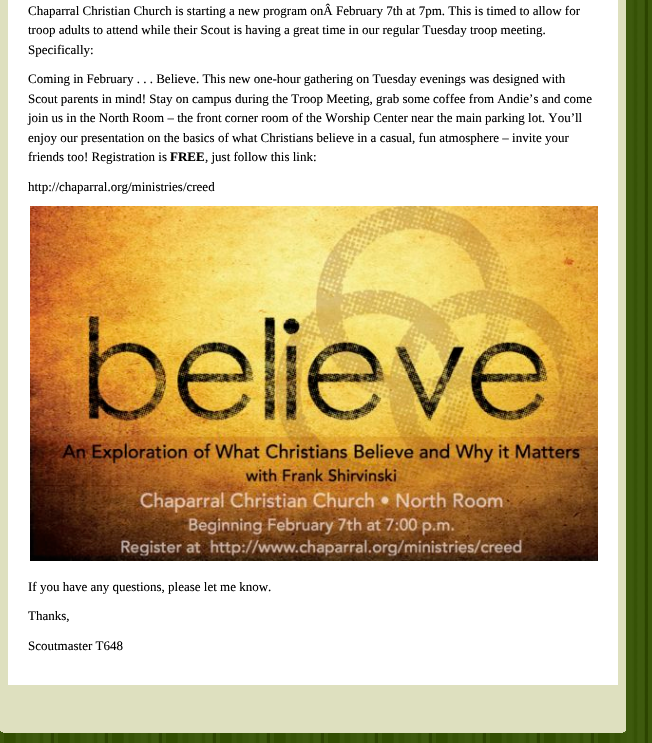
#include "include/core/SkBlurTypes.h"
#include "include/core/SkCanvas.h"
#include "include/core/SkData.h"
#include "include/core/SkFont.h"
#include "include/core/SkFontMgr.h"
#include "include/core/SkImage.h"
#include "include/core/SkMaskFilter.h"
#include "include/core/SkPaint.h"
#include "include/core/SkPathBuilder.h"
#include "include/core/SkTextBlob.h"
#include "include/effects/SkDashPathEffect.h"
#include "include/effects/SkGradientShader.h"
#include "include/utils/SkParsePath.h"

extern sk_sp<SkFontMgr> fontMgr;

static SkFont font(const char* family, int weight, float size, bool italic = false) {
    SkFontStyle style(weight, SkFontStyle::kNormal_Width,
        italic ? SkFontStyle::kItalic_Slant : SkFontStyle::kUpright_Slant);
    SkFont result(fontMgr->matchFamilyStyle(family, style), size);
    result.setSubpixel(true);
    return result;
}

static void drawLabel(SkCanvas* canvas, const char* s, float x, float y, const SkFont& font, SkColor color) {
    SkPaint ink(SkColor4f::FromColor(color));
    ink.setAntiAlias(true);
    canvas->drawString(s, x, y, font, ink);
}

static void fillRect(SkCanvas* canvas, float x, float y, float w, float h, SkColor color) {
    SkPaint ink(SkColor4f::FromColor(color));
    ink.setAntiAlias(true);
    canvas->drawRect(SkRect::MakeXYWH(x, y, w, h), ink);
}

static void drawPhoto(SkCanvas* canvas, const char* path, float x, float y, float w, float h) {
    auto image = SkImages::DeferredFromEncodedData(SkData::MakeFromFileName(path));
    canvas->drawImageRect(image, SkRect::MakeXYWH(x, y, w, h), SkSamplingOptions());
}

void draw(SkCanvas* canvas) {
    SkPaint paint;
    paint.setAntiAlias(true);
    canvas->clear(0xFFFFFFFF);
    drawPhoto(canvas, "assets/img1.png", 0, 0, 652, 743);
    fillRect(canvas, 0, 0, 626, 731, 0xFFDEE0BF);
    drawPhoto(canvas, "assets/img2.png", 0, 731, 626, 2);
    fillRect(canvas, 8, 0, 610, 685, 0xFFFFFFFF);
    SkFont font1 = font("Liberation Serif", 400, 13);
    drawLabel(canvas, "Chaparral Christian Church is starting a new program onÂ February 7th at 7pm. This is timed to allow for", 28, 15, font1, 0xFF000000);
    drawLabel(canvas, "troop adults to attend while their Scout is having a great time in our regular Tuesday troop meeting.", 28, 34, font1, 0xFF000000);
    drawLabel(canvas, "Specifically:", 28, 54, font1, 0xFF000000);
    drawLabel(canvas, "Coming in February . . . Believe. This new one-hour gathering on Tuesday evenings was designed with", 28, 83, font1, 0xFF000000);
    drawLabel(canvas, "Scout parents in mind! Stay on campus during the Troop Meeting, grab some coffee from Andie’s and come", 28, 103, font1, 0xFF000000);
    drawLabel(canvas, "join us in the North Room – the front corner room of the Worship Center near the main parking lot. You’ll", 28, 122, font1, 0xFF000000);
    drawLabel(canvas, "enjoy our presentation on the basics of what Christians believe in a casual, fun atmosphere – invite your", 28, 142, font1, 0xFF000000);
    drawLabel(canvas, "friends too! Registration is", 28, 161, font1, 0xFF000000);
    SkFont font2 = font("Liberation Serif", 700, 13);
    drawLabel(canvas, "FREE", 170, 161, font2, 0xFF000000);
    drawLabel(canvas, ", just follow this link:", 205, 161, font1, 0xFF000000);
    drawLabel(canvas, "http://chaparral.org/ministries/creed", 28, 191, font1, 0xFF000000);
    drawPhoto(canvas, "assets/img3.png", 30, 206, 568, 355);
    drawLabel(canvas, "If you have any questions, please let me know.", 28, 591, font1, 0xFF000000);
    drawLabel(canvas, "Thanks,", 28, 620, font1, 0xFF000000);
    drawLabel(canvas, "Scoutmaster T648", 28, 650, font1, 0xFF000000);
}
